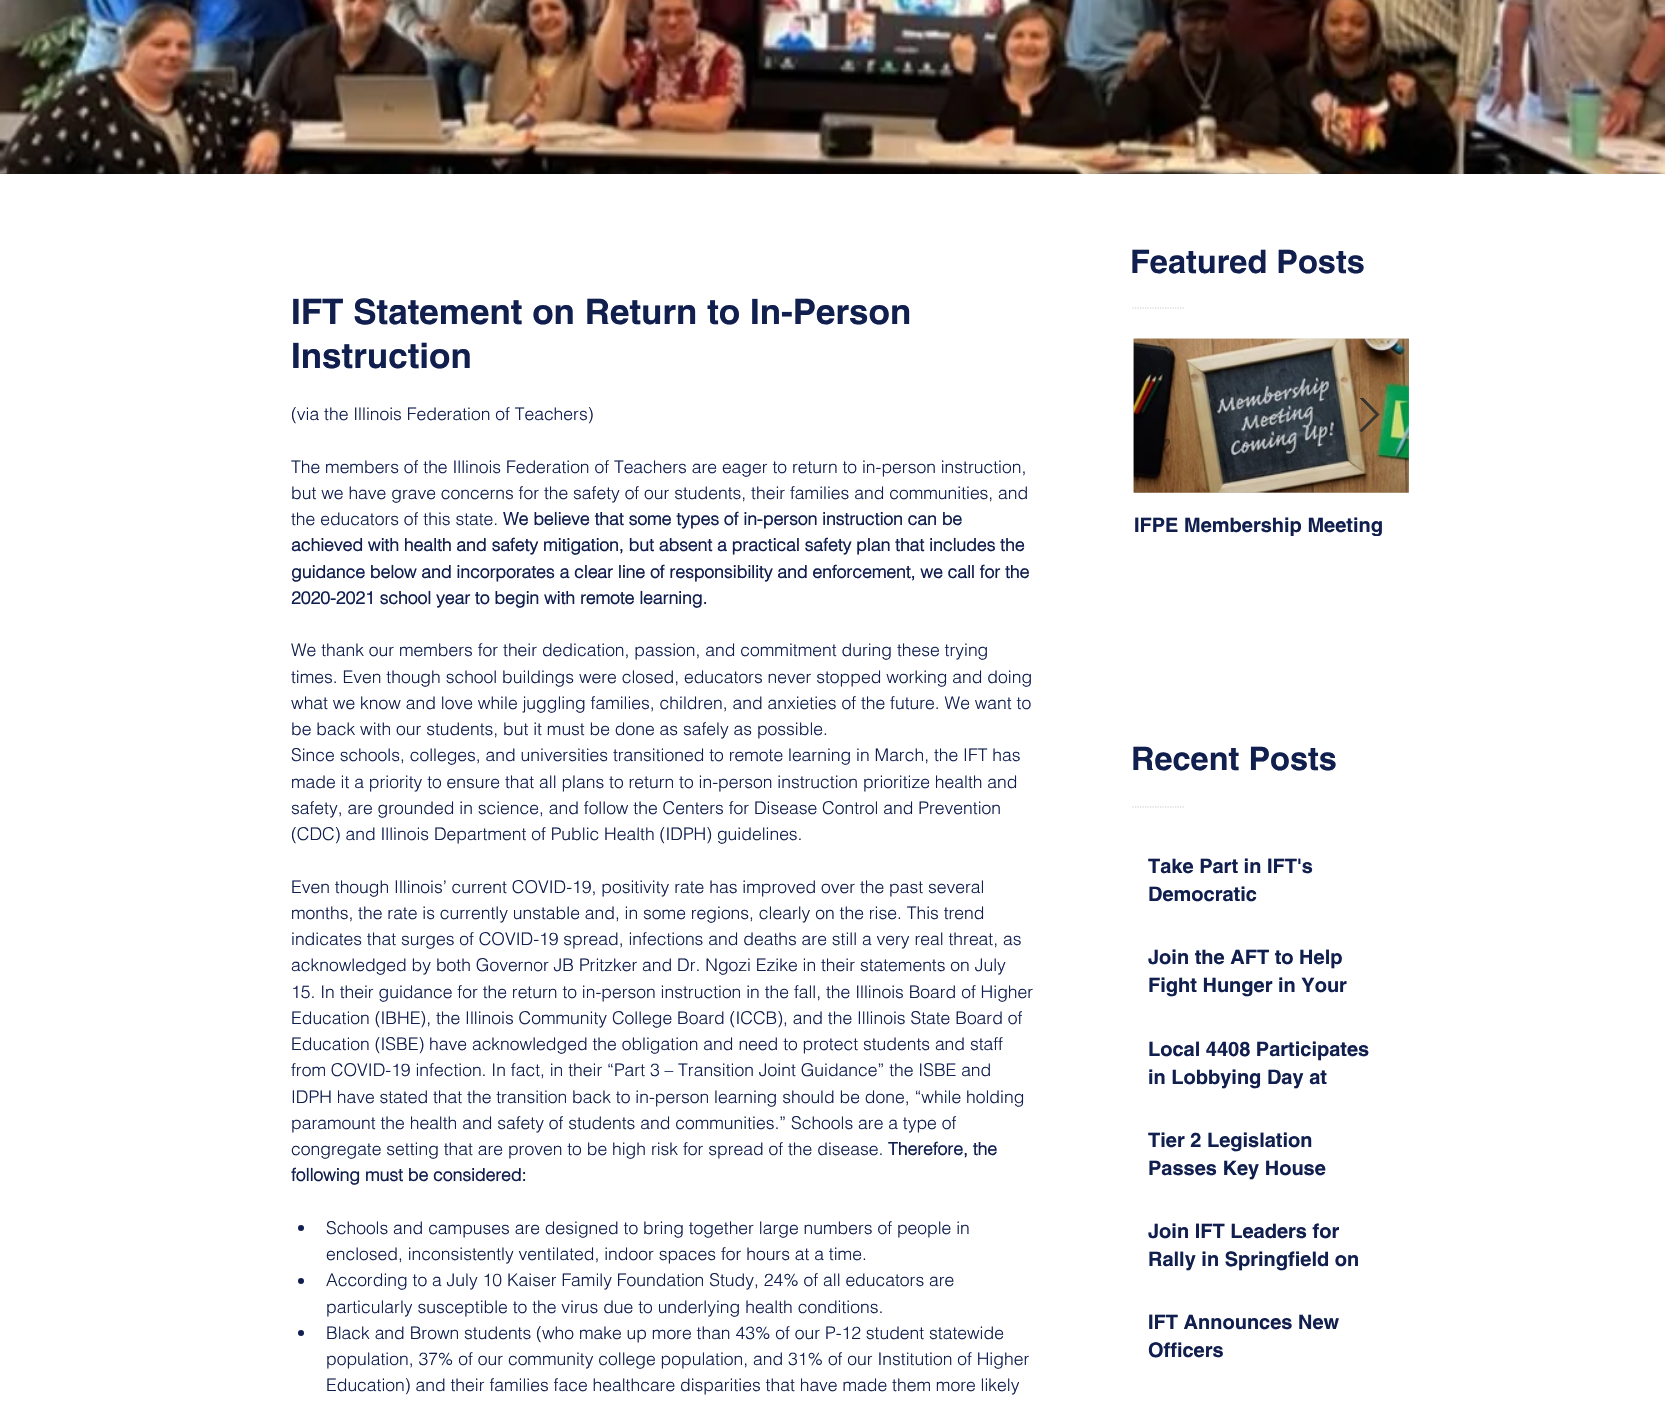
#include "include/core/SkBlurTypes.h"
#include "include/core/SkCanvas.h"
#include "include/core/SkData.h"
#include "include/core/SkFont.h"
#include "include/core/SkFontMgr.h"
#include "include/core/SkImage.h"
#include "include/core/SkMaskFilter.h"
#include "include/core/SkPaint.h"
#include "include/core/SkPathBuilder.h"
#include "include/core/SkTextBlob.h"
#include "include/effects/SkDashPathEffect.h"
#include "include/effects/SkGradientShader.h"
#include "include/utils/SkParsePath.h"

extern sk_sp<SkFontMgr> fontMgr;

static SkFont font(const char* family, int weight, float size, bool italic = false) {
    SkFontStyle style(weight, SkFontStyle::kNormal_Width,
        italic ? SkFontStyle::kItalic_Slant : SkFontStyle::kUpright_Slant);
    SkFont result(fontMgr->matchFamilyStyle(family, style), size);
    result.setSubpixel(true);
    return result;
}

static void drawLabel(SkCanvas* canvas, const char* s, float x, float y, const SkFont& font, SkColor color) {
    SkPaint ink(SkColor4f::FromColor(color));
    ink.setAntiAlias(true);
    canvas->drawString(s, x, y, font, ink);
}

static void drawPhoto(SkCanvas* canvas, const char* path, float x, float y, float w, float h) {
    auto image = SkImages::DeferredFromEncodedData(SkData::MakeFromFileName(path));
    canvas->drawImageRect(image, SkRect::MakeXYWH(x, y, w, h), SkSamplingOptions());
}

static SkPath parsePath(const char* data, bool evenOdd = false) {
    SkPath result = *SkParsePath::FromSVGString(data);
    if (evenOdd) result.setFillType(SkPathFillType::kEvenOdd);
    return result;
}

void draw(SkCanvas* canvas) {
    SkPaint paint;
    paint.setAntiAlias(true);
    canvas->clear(0xFFFFFFFF);
    drawPhoto(canvas, "assets/img1.png", 0, 0, 1665, 174);
    SkFont font1 = font("helvetica", 700, 35);
    drawLabel(canvas, "IFT Statement on Return to In-Person", 291, 324, font1, 0xFF111F4F);
    drawLabel(canvas, "Instruction", 291, 368, font1, 0xFF111F4F);
    SkFont font2 = font("helvetica", 300, 17.5f);
    drawLabel(canvas, "(via the Illinois Federation of Teachers)", 291, 420, font2, 0xFF111F4F);
    drawLabel(canvas, "The members of the Illinois Federation of Teachers are eager to return to in-person instruction,", 291, 473, font2, 0xFF111F4F);
    drawLabel(canvas, "but we have grave concerns for the safety of our students, their families and communities, and", 291, 499, font2, 0xFF111F4F);
    drawLabel(canvas, "the educators of this state.", 291, 525, font2, 0xFF111F4F);
    SkFont font3 = font("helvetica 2", 700, 17.5f);
    drawLabel(canvas, "We believe that some types of in-person instruction can be", 503, 525, font3, 0xFF111F4F);
    drawLabel(canvas, "achieved with health and safety mitigation, but absent a practical safety plan that includes the", 291, 551, font3, 0xFF111F4F);
    drawLabel(canvas, "guidance below and incorporates a clear line of responsibility and enforcement, we call for the", 291, 578, font3, 0xFF111F4F);
    drawLabel(canvas, "2020-2021 school year to begin with remote learning.", 291, 604, font3, 0xFF111F4F);
    drawLabel(canvas, "We thank our members for their dedication, passion, and commitment during these trying", 291, 656, font2, 0xFF111F4F);
    drawLabel(canvas, "times. Even though school buildings were closed, educators never stopped working and doing", 291, 683, font2, 0xFF111F4F);
    drawLabel(canvas, "what we know and love while juggling families, children, and anxieties of the future. We want to", 291, 709, font2, 0xFF111F4F);
    drawLabel(canvas, "be back with our students, but it must be done as safely as possible.", 291, 735, font2, 0xFF111F4F);
    drawLabel(canvas, "Since schools, colleges, and universities transitioned to remote learning in March, the IFT has", 291, 761, font2, 0xFF111F4F);
    drawLabel(canvas, "made it a priority to ensure that all plans to return to in-person instruction prioritize health and", 291, 788, font2, 0xFF111F4F);
    drawLabel(canvas, "safety, are grounded in science, and follow the Centers for Disease Control and Prevention", 291, 814, font2, 0xFF111F4F);
    drawLabel(canvas, "(CDC) and Illinois Department of Public Health (IDPH) guidelines.", 291, 840, font2, 0xFF111F4F);
    drawLabel(canvas, "Even though Illinois’ current COVID-19, positivity rate has improved over the past several", 291, 893, font2, 0xFF111F4F);
    drawLabel(canvas, "months, the rate is currently unstable and, in some regions, clearly on the rise. This trend", 291, 919, font2, 0xFF111F4F);
    drawLabel(canvas, "indicates that surges of COVID-19 spread, infections and deaths are still a very real threat, as", 291, 945, font2, 0xFF111F4F);
    drawLabel(canvas, "acknowledged by both Governor JB Pritzker and Dr. Ngozi Ezike in their statements on July", 291, 971, font2, 0xFF111F4F);
    drawLabel(canvas, "15. In their guidance for the return to in-person instruction in the fall, the Illinois Board of Higher", 291, 998, font2, 0xFF111F4F);
    drawLabel(canvas, "Education (IBHE), the Illinois Community College Board (ICCB), and the Illinois State Board of", 291, 1024, font2, 0xFF111F4F);
    drawLabel(canvas, "Education (ISBE) have acknowledged the obligation and need to protect students and staff", 291, 1050, font2, 0xFF111F4F);
    drawLabel(canvas, "from COVID-19 infection. In fact, in their “Part 3 – Transition Joint Guidance” the ISBE and", 291, 1076, font2, 0xFF111F4F);
    drawLabel(canvas, "IDPH have stated that the transition back to in-person learning should be done, “while holding", 291, 1103, font2, 0xFF111F4F);
    drawLabel(canvas, "paramount the health and safety of students and communities.” Schools are a type of", 291, 1129, font2, 0xFF111F4F);
    drawLabel(canvas, "congregate setting that are proven to be high risk for spread of the disease.", 291, 1155, font2, 0xFF111F4F);
    drawLabel(canvas, "Therefore, the", 888, 1155, font3, 0xFF111F4F);
    drawLabel(canvas, "following must be considered:", 291, 1181, font3, 0xFF111F4F);
    paint.setColor(0xFF111F4F);
    canvas->drawCircle(301, 1228, 3, paint);
    drawLabel(canvas, "Schools and campuses are designed to bring together large numbers of people in", 326, 1234, font2, 0xFF111F4F);
    drawLabel(canvas, "enclosed, inconsistently ventilated, indoor spaces for hours at a time.", 326, 1260, font2, 0xFF111F4F);
    canvas->drawCircle(301, 1281, 3, paint);
    drawLabel(canvas, "According to a July 10 Kaiser Family Foundation Study, 24% of all educators are", 326, 1286, font2, 0xFF111F4F);
    drawLabel(canvas, "particularly susceptible to the virus due to underlying health conditions.", 326, 1313, font2, 0xFF111F4F);
    canvas->drawCircle(301, 1333, 3, paint);
    drawLabel(canvas, "Black and Brown students (who make up more than 43% of our P-12 student statewide", 326, 1339, font2, 0xFF111F4F);
    drawLabel(canvas, "population, 37% of our community college population, and 31% of our Institution of Higher", 326, 1365, font2, 0xFF111F4F);
    drawLabel(canvas, "Education) and their families face healthcare disparities that have made them more likely", 326, 1391, font2, 0xFF111F4F);
    SkFont font4 = font("helvetica", 700, 32.5f);
    drawLabel(canvas, "Featured Posts", 1130, 273, font4, 0xFF111F4F);
    paint.setStroke(true);
    paint.setStrokeWidth(1.2f);
    paint.setColor(0xFFCCCCCC);
    paint.setPathEffect(SkDashPathEffect::Make({{1.25f, 1.25f}}, 0));
    canvas->drawPath(parsePath("M1132.5 308H1184"), paint);
    paint.setPathEffect(nullptr);
    drawPhoto(canvas, "assets/img2.png", 1133, 338, 276, 155);
    drawPhoto(canvas, "assets/img3.png", 1133, 338, 276, 155);
    canvas->save();
    canvas->clipRect(SkRect::MakeXYWH(1358, 398, 22, 37));
    paint.setStroke(false);
    paint.setColor(0xE62F2E2E);
    canvas->drawPath(parsePath("M1360 398L1361.5 396.5L1379 414.5L1361.5 432L1360 430.5L1376 414.5Z"), paint);
    paint.setStroke(true);
    paint.setStrokeWidth(1);
    canvas->drawPath(parsePath("M1360 398L1361.5 396.5L1379 414.5L1361.5 432L1360 430.5L1376 414.5Z"), paint);
    canvas->restore();
    canvas->save();
    canvas->clipRect(SkRect::MakeXYWH(1134, 513, 275, 23));
    SkFont font5 = font("helvetica", 700, 20);
    drawLabel(canvas, "IFPE Membership Meeting", 1134, 532, font5, 0xFF111F4F);
    canvas->restore();
    drawLabel(canvas, "Recent Posts", 1131, 770, font4, 0xFF111F4F);
    paint.setStrokeWidth(1.2f);
    paint.setColor(0xFFCCCCCC);
    paint.setPathEffect(SkDashPathEffect::Make({{1.25f, 1.25f}}, 0));
    canvas->drawPath(parsePath("M1132.5 807H1184"), paint);
    paint.setPathEffect(nullptr);
    canvas->save();
    canvas->clipRect(SkRect::MakeXYWH(1148, 854, 227, 70));
    drawLabel(canvas, "Take Part in IFT's", 1148, 873, font5, 0xFF111F4F);
    canvas->restore();
    drawLabel(canvas, "Democratic", 1148, 901, font5, 0xFF111F4F);
    drawLabel(canvas, "Join the AFT to Help", 1148, 964, font5, 0xFF111F4F);
    drawLabel(canvas, "Fight Hunger in Your", 1148, 992, font5, 0xFF111F4F);
    drawLabel(canvas, "Local 4408 Participates", 1148, 1056, font5, 0xFF111F4F);
    drawLabel(canvas, "in Lobbying Day at", 1148, 1084, font5, 0xFF111F4F);
    canvas->save();
    canvas->clipRect(SkRect::MakeXYWH(1148, 1128, 227, 70));
    drawLabel(canvas, "Tier 2 Legislation", 1148, 1147, font5, 0xFF111F4F);
    canvas->restore();
    drawLabel(canvas, "Passes Key House", 1148, 1175, font5, 0xFF111F4F);
    drawLabel(canvas, "Join IFT Leaders for", 1148, 1238, font5, 0xFF111F4F);
    drawLabel(canvas, "Rally in Springfield on", 1148, 1266, font5, 0xFF111F4F);
    drawLabel(canvas, "IFT Announces New", 1148, 1329, font5, 0xFF111F4F);
    drawLabel(canvas, "Officers", 1148, 1357, font5, 0xFF111F4F);
}
